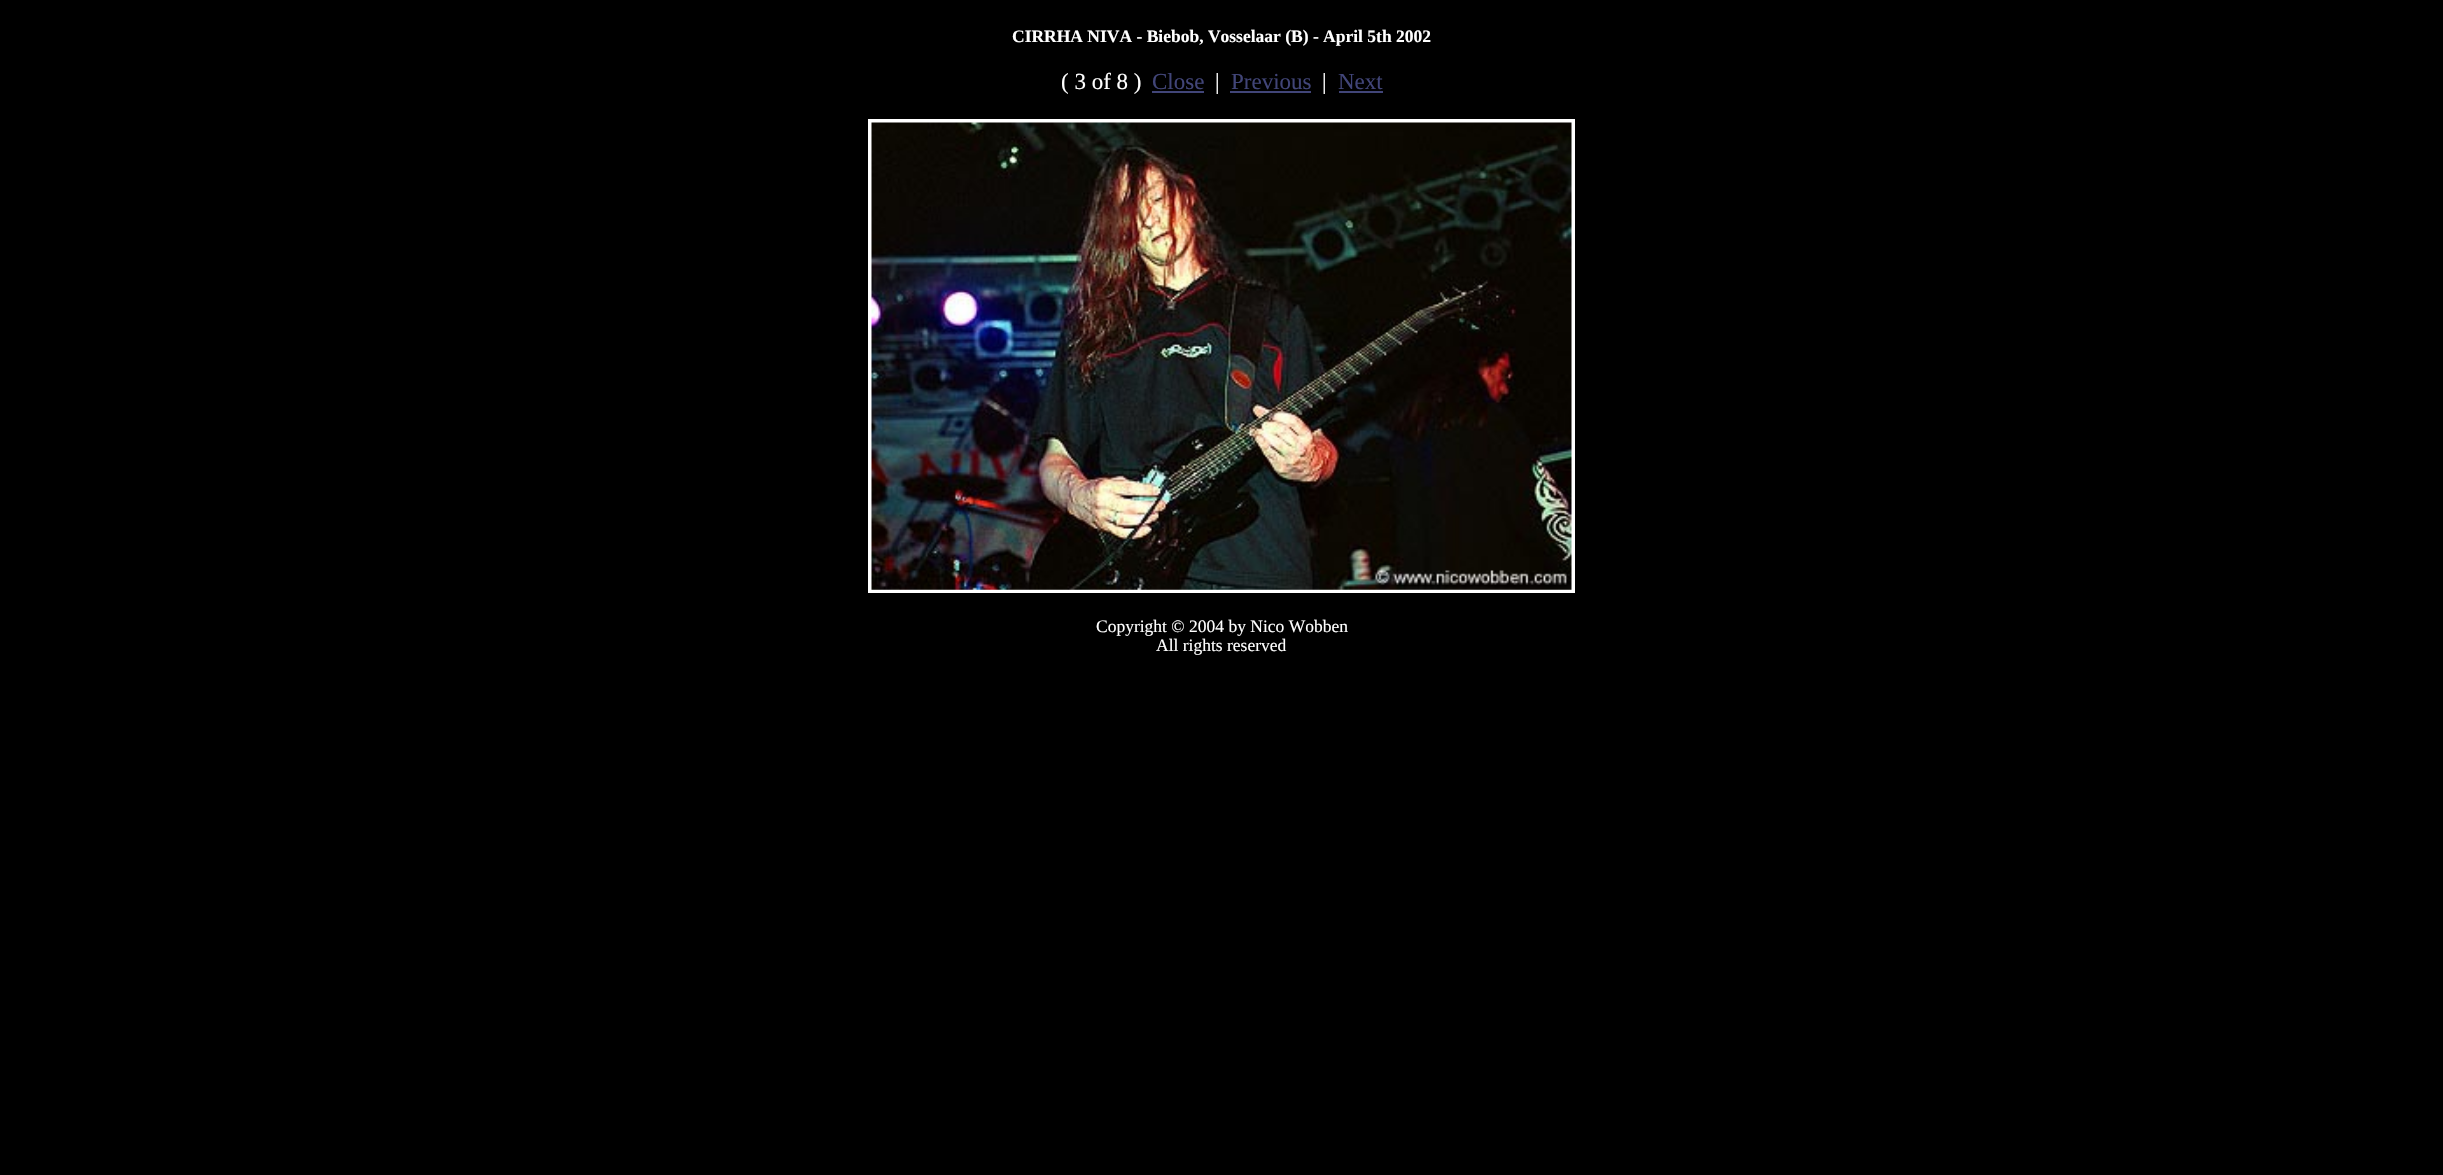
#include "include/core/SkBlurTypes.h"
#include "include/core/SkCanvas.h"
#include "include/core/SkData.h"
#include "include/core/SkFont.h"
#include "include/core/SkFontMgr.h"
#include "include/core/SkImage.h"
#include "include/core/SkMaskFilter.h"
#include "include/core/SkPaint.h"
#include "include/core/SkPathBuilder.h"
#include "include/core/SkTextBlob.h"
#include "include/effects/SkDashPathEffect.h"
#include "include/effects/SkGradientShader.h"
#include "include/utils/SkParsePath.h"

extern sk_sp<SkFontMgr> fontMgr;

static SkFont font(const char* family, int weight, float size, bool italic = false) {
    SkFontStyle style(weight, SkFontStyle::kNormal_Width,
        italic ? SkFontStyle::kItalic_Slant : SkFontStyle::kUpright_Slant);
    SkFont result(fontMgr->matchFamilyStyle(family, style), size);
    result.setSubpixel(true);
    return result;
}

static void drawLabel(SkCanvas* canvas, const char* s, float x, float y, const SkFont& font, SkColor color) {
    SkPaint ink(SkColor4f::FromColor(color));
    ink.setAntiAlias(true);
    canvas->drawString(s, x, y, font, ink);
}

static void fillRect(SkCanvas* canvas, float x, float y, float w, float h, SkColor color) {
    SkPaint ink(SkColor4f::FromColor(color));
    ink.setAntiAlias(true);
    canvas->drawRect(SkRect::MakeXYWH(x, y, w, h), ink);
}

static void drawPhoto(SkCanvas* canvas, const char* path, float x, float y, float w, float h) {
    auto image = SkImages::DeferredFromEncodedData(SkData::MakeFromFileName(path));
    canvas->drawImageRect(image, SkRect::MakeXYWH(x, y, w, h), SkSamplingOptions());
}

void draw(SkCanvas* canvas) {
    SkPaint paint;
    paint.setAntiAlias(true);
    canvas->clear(0xFF000000);
    SkFont font1 = font("Liberation Serif", 700, 17.5f);
    drawLabel(canvas, "CIRRHA NIVA - Biebob, Vosselaar (B) - April 5th 2002", 1012, 42, font1, 0xFFFFFFFF);
    SkFont font2 = font("Liberation Serif", 400, 23);
    drawLabel(canvas, "( 3 of 8 )", 1061, 89, font2, 0xFFFFFFFF);
    drawLabel(canvas, "Close", 1152, 89, font2, 0xFF414578);
    fillRect(canvas, 1152, 91, 52, 2, 0xFF414578);
    drawLabel(canvas, "|", 1215, 89, font2, 0xFFFFFFFF);
    drawLabel(canvas, "Previous", 1231, 89, font2, 0xFF414578);
    fillRect(canvas, 1230, 91, 81, 2, 0xFF414578);
    drawLabel(canvas, "|", 1322, 89, font2, 0xFFFFFFFF);
    drawLabel(canvas, "Next", 1338, 89, font2, 0xFF414578);
    fillRect(canvas, 1339, 91, 44, 2, 0xFF414578);
    paint.setStroke(true);
    paint.setStrokeWidth(4);
    paint.setColor(0xFFFFFFFF);
    canvas->drawRect(SkRect::MakeXYWH(870, 121, 703, 470), paint);
    drawPhoto(canvas, "assets/img1.png", 871, 122, 701, 468);
    SkFont font3 = font("Liberation Serif", 400, 17.5f);
    drawLabel(canvas, "Copyright © 2004 by Nico Wobben", 1096, 632, font3, 0xFFFFFFFF);
    drawLabel(canvas, "All rights reserved", 1156, 651, font3, 0xFFFFFFFF);
}
